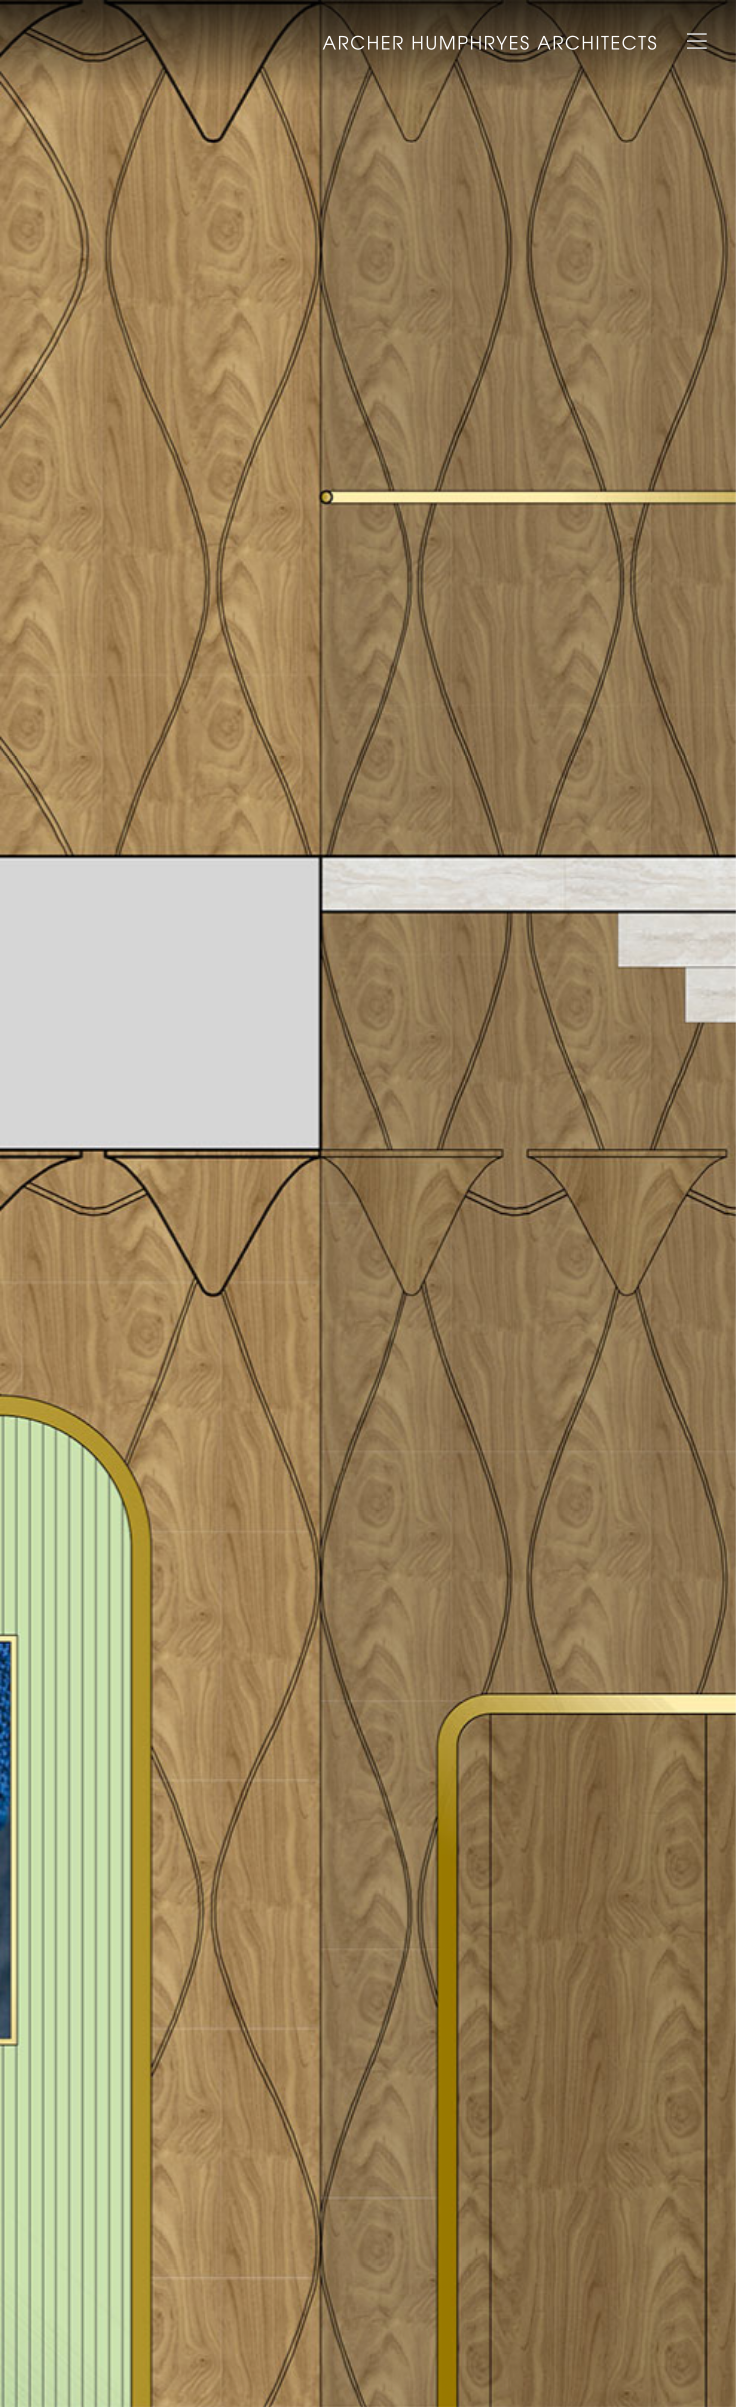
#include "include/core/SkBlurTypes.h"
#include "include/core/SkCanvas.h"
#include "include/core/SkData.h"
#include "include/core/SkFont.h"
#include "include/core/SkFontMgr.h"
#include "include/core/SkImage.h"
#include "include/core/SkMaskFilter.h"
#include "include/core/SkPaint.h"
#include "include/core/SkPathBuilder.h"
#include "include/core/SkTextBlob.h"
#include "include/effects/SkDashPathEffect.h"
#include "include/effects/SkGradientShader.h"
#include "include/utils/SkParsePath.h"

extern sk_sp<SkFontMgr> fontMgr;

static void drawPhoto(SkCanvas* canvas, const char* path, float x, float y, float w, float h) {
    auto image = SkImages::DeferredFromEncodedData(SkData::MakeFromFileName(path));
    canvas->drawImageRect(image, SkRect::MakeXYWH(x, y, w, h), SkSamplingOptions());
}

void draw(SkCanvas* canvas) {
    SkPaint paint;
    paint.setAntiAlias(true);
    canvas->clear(0xFFFFFFFF);
    drawPhoto(canvas, "assets/img1.png", 0, 0, 736, 2407);
    {
        const SkColor colors[] = {0xB3000000, 0x00000000, 0x0000D4FF, 0xFF00D4FF};
        const float stops[] = {0.02f, 1, 1, 1};
        const SkPoint ends[] = {{368, 0}, {368, 93}};
        paint.setShader(SkGradientShader::MakeLinear(ends, colors, stops, 4, SkTileMode::kClamp));
        paint.setAlpha(255);
    }
    canvas->drawRect(SkRect::MakeXYWH(0, 0, 736, 90), paint);
    drawPhoto(canvas, "assets/img2.png", 322, 35, 335, 15);
    drawPhoto(canvas, "assets/img3.png", 687, 33, 20, 16);
}
